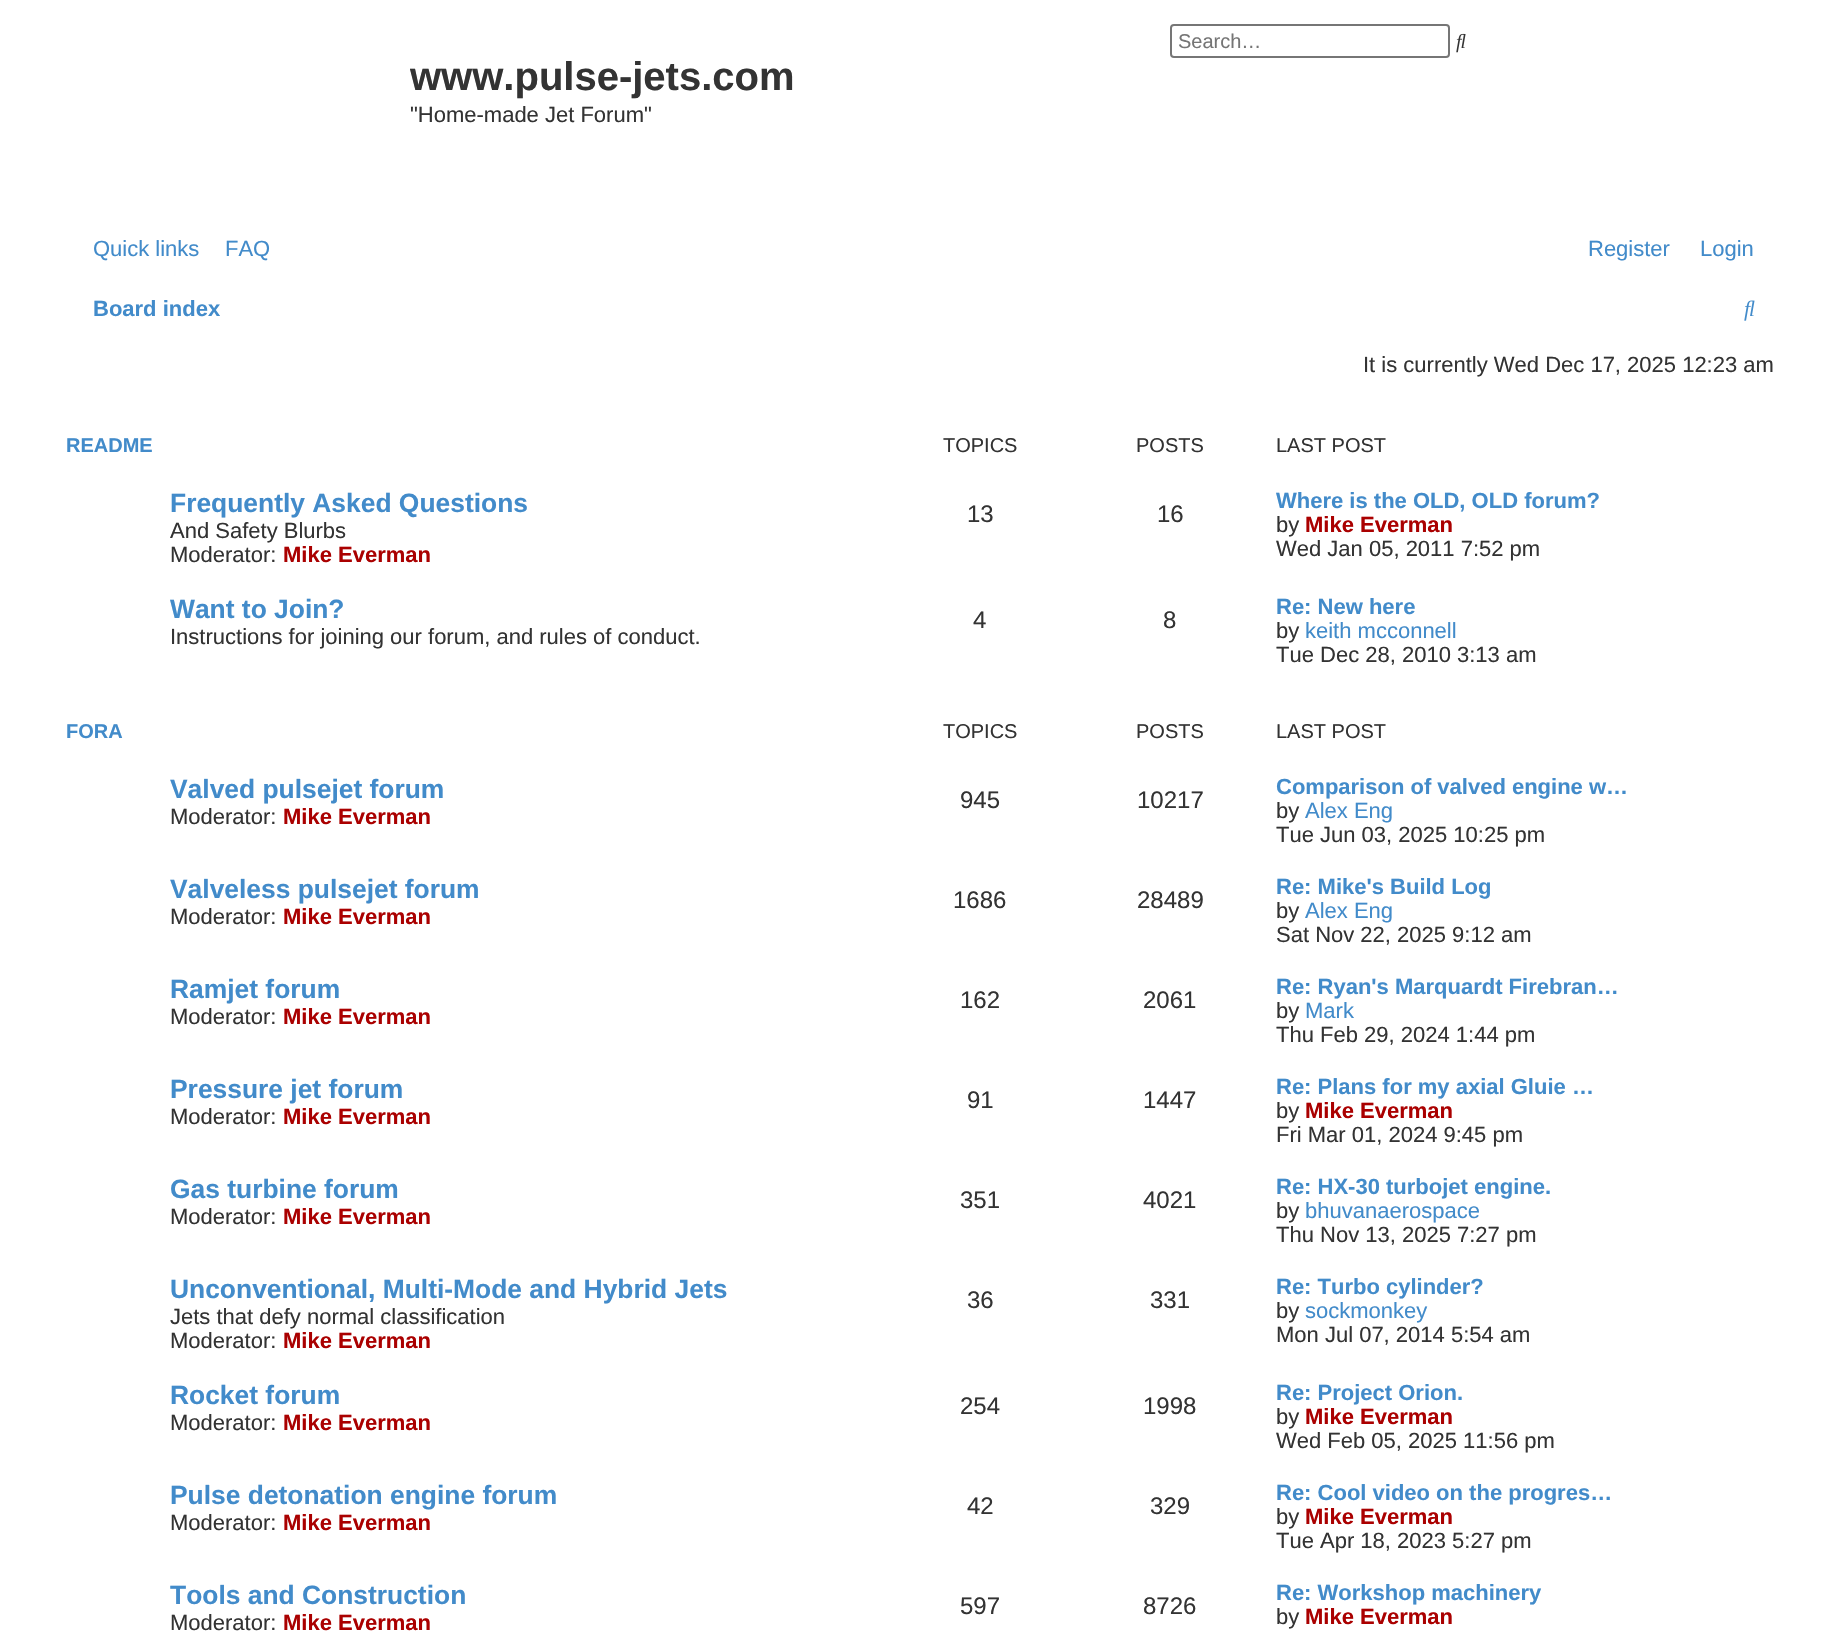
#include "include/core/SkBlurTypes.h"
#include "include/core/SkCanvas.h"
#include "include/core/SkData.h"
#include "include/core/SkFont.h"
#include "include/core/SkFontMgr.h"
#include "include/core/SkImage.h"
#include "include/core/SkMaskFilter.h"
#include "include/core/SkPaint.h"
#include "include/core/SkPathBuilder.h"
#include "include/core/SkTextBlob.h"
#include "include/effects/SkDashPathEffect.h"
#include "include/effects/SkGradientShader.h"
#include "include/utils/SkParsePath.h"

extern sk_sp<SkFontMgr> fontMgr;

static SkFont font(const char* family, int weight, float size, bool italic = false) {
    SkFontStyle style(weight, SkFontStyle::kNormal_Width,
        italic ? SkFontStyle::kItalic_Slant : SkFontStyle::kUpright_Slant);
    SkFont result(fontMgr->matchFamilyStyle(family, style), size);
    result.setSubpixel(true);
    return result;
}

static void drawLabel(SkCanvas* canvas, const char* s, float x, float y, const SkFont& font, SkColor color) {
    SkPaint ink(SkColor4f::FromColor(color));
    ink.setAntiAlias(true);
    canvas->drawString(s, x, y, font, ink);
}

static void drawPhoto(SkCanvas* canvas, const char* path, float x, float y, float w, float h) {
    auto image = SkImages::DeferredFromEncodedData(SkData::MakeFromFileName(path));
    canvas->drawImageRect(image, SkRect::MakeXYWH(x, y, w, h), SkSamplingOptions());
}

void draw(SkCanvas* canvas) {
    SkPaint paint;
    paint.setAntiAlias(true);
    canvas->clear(0xFFFFFFFF);
    paint.setStroke(true);
    paint.setStrokeWidth(2);
    paint.setColor(0xFF767676);
    canvas->drawRoundRect(SkRect::MakeXYWH(1171, 25, 278, 32), 3, 3, paint);
    SkFont font1 = font("Liberation Sans", 400, 20);
    drawLabel(canvas, "Search…", 1178, 48, font1, 0xFF757575);
    drawPhoto(canvas, "assets/img1.png", 1456, 33, 10, 20);
    SkFont font2 = font("Liberation Sans", 700, 40);
    drawLabel(canvas, "www.pulse-jets.com", 410, 90, font2, 0xFF333333);
    SkFont font3 = font("Liberation Sans", 400, 22);
    drawLabel(canvas, "\"Home-made Jet Forum\"", 410, 122, font3, 0xFF333333);
    drawLabel(canvas, "Quick links", 93, 256, font3, 0xFF428BCA);
    drawLabel(canvas, "FAQ", 225, 256, font3, 0xFF428BCA);
    drawLabel(canvas, "Register", 1588, 256, font3, 0xFF428BCA);
    drawLabel(canvas, "Login", 1700, 256, font3, 0xFF428BCA);
    SkFont font4 = font("Liberation Sans", 700, 22);
    drawLabel(canvas, "Board index", 93, 316, font4, 0xFF428BCA);
    drawPhoto(canvas, "assets/img2.png", 1744, 300, 11, 21);
    drawLabel(canvas, "It is currently Wed Dec 17, 2025 12:23 am", 1363, 372, font3, 0xFF333333);
    SkFont font5 = font("Liberation Sans", 700, 20);
    drawLabel(canvas, "README", 66, 452, font5, 0xFF428BCA);
    drawLabel(canvas, "TOPICS", 943, 452, font1, 0xFF333333);
    drawLabel(canvas, "POSTS", 1136, 452, font1, 0xFF333333);
    drawLabel(canvas, "LAST POST", 1276, 452, font1, 0xFF333333);
    SkFont font6 = font("Liberation Sans", 700, 26.4f);
    drawLabel(canvas, "Frequently Asked Questions", 170, 512, font6, 0xFF428BCA);
    drawLabel(canvas, "And Safety Blurbs", 170, 538, font3, 0xFF333333);
    drawLabel(canvas, "Moderator:", 170, 562, font3, 0xFF333333);
    drawLabel(canvas, "Mike Everman", 283, 562, font4, 0xFFAA0000);
    SkFont font7 = font("Liberation Sans", 400, 24);
    drawLabel(canvas, "13", 967, 522, font7, 0xFF333333);
    drawLabel(canvas, "16", 1157, 522, font7, 0xFF333333);
    drawLabel(canvas, "Where is the OLD, OLD forum?", 1276, 508, font4, 0xFF428BCA);
    drawLabel(canvas, "by", 1276, 532, font3, 0xFF333333);
    drawLabel(canvas, "Mike Everman", 1305, 532, font4, 0xFFAA0000);
    drawLabel(canvas, "Wed Jan 05, 2011 7:52 pm", 1276, 556, font3, 0xFF333333);
    drawLabel(canvas, "Want to Join?", 170, 618, font6, 0xFF428BCA);
    drawLabel(canvas, "Instructions for joining our forum, and rules of conduct.", 170, 644, font3, 0xFF333333);
    drawLabel(canvas, "4", 973, 628, font7, 0xFF333333);
    drawLabel(canvas, "8", 1163, 628, font7, 0xFF333333);
    drawLabel(canvas, "Re: New here", 1276, 614, font4, 0xFF428BCA);
    drawLabel(canvas, "by", 1276, 638, font3, 0xFF333333);
    drawLabel(canvas, "keith mcconnell", 1305, 638, font3, 0xFF428BCA);
    drawLabel(canvas, "Tue Dec 28, 2010 3:13 am", 1276, 662, font3, 0xFF333333);
    drawLabel(canvas, "FORA", 66, 738, font5, 0xFF428BCA);
    drawLabel(canvas, "TOPICS", 943, 738, font1, 0xFF333333);
    drawLabel(canvas, "POSTS", 1136, 738, font1, 0xFF333333);
    drawLabel(canvas, "LAST POST", 1276, 738, font1, 0xFF333333);
    drawLabel(canvas, "Valved pulsejet forum", 170, 798, font6, 0xFF428BCA);
    drawLabel(canvas, "Moderator:", 170, 824, font3, 0xFF333333);
    drawLabel(canvas, "Mike Everman", 283, 824, font4, 0xFFAA0000);
    drawLabel(canvas, "945", 960, 808, font7, 0xFF333333);
    drawLabel(canvas, "10217", 1137, 808, font7, 0xFF333333);
    drawLabel(canvas, "Comparison of valved engine w…", 1276, 794, font4, 0xFF428BCA);
    drawLabel(canvas, "by", 1276, 818, font3, 0xFF333333);
    drawLabel(canvas, "Alex Eng", 1305, 818, font3, 0xFF428BCA);
    drawLabel(canvas, "Tue Jun 03, 2025 10:25 pm", 1276, 842, font3, 0xFF333333);
    drawLabel(canvas, "Valveless pulsejet forum", 170, 898, font6, 0xFF428BCA);
    drawLabel(canvas, "Moderator:", 170, 924, font3, 0xFF333333);
    drawLabel(canvas, "Mike Everman", 283, 924, font4, 0xFFAA0000);
    drawLabel(canvas, "1686", 953, 908, font7, 0xFF333333);
    drawLabel(canvas, "28489", 1137, 908, font7, 0xFF333333);
    drawLabel(canvas, "Re: Mike's Build Log", 1276, 894, font4, 0xFF428BCA);
    drawLabel(canvas, "by", 1276, 918, font3, 0xFF333333);
    drawLabel(canvas, "Alex Eng", 1305, 918, font3, 0xFF428BCA);
    drawLabel(canvas, "Sat Nov 22, 2025 9:12 am", 1276, 942, font3, 0xFF333333);
    drawLabel(canvas, "Ramjet forum", 170, 998, font6, 0xFF428BCA);
    drawLabel(canvas, "Moderator:", 170, 1024, font3, 0xFF333333);
    drawLabel(canvas, "Mike Everman", 283, 1024, font4, 0xFFAA0000);
    drawLabel(canvas, "162", 960, 1008, font7, 0xFF333333);
    drawLabel(canvas, "2061", 1143, 1008, font7, 0xFF333333);
    drawLabel(canvas, "Re: Ryan's Marquardt Firebran…", 1276, 994, font4, 0xFF428BCA);
    drawLabel(canvas, "by", 1276, 1018, font3, 0xFF333333);
    drawLabel(canvas, "Mark", 1305, 1018, font3, 0xFF428BCA);
    drawLabel(canvas, "Thu Feb 29, 2024 1:44 pm", 1276, 1042, font3, 0xFF333333);
    drawLabel(canvas, "Pressure jet forum", 170, 1098, font6, 0xFF428BCA);
    drawLabel(canvas, "Moderator:", 170, 1124, font3, 0xFF333333);
    drawLabel(canvas, "Mike Everman", 283, 1124, font4, 0xFFAA0000);
    drawLabel(canvas, "91", 967, 1108, font7, 0xFF333333);
    drawLabel(canvas, "1447", 1143, 1108, font7, 0xFF333333);
    drawLabel(canvas, "Re: Plans for my axial Gluie …", 1276, 1094, font4, 0xFF428BCA);
    drawLabel(canvas, "by", 1276, 1118, font3, 0xFF333333);
    drawLabel(canvas, "Mike Everman", 1305, 1118, font4, 0xFFAA0000);
    drawLabel(canvas, "Fri Mar 01, 2024 9:45 pm", 1276, 1142, font3, 0xFF333333);
    drawLabel(canvas, "Gas turbine forum", 170, 1198, font6, 0xFF428BCA);
    drawLabel(canvas, "Moderator:", 170, 1224, font3, 0xFF333333);
    drawLabel(canvas, "Mike Everman", 283, 1224, font4, 0xFFAA0000);
    drawLabel(canvas, "351", 960, 1208, font7, 0xFF333333);
    drawLabel(canvas, "4021", 1143, 1208, font7, 0xFF333333);
    drawLabel(canvas, "Re: HX-30 turbojet engine.", 1276, 1194, font4, 0xFF428BCA);
    drawLabel(canvas, "by", 1276, 1218, font3, 0xFF333333);
    drawLabel(canvas, "bhuvanaerospace", 1305, 1218, font3, 0xFF428BCA);
    drawLabel(canvas, "Thu Nov 13, 2025 7:27 pm", 1276, 1242, font3, 0xFF333333);
    drawLabel(canvas, "Unconventional, Multi-Mode and Hybrid Jets", 170, 1298, font6, 0xFF428BCA);
    drawLabel(canvas, "Jets that defy normal classification", 170, 1324, font3, 0xFF333333);
    drawLabel(canvas, "Moderator:", 170, 1348, font3, 0xFF333333);
    drawLabel(canvas, "Mike Everman", 283, 1348, font4, 0xFFAA0000);
    drawLabel(canvas, "36", 967, 1308, font7, 0xFF333333);
    drawLabel(canvas, "331", 1150, 1308, font7, 0xFF333333);
    drawLabel(canvas, "Re: Turbo cylinder?", 1276, 1294, font4, 0xFF428BCA);
    drawLabel(canvas, "by", 1276, 1318, font3, 0xFF333333);
    drawLabel(canvas, "sockmonkey", 1305, 1318, font3, 0xFF428BCA);
    drawLabel(canvas, "Mon Jul 07, 2014 5:54 am", 1276, 1342, font3, 0xFF333333);
    drawLabel(canvas, "Rocket forum", 170, 1404, font6, 0xFF428BCA);
    drawLabel(canvas, "Moderator:", 170, 1430, font3, 0xFF333333);
    drawLabel(canvas, "Mike Everman", 283, 1430, font4, 0xFFAA0000);
    drawLabel(canvas, "254", 960, 1414, font7, 0xFF333333);
    drawLabel(canvas, "1998", 1143, 1414, font7, 0xFF333333);
    drawLabel(canvas, "Re: Project Orion.", 1276, 1400, font4, 0xFF428BCA);
    drawLabel(canvas, "by", 1276, 1424, font3, 0xFF333333);
    drawLabel(canvas, "Mike Everman", 1305, 1424, font4, 0xFFAA0000);
    drawLabel(canvas, "Wed Feb 05, 2025 11:56 pm", 1276, 1448, font3, 0xFF333333);
    drawLabel(canvas, "Pulse detonation engine forum", 170, 1504, font6, 0xFF428BCA);
    drawLabel(canvas, "Moderator:", 170, 1530, font3, 0xFF333333);
    drawLabel(canvas, "Mike Everman", 283, 1530, font4, 0xFFAA0000);
    drawLabel(canvas, "42", 967, 1514, font7, 0xFF333333);
    drawLabel(canvas, "329", 1150, 1514, font7, 0xFF333333);
    drawLabel(canvas, "Re: Cool video on the progres…", 1276, 1500, font4, 0xFF428BCA);
    drawLabel(canvas, "by", 1276, 1524, font3, 0xFF333333);
    drawLabel(canvas, "Mike Everman", 1305, 1524, font4, 0xFFAA0000);
    drawLabel(canvas, "Tue Apr 18, 2023 5:27 pm", 1276, 1548, font3, 0xFF333333);
    drawLabel(canvas, "Tools and Construction", 170, 1604, font6, 0xFF428BCA);
    drawLabel(canvas, "Moderator:", 170, 1630, font3, 0xFF333333);
    drawLabel(canvas, "Mike Everman", 283, 1630, font4, 0xFFAA0000);
    drawLabel(canvas, "597", 960, 1614, font7, 0xFF333333);
    drawLabel(canvas, "8726", 1143, 1614, font7, 0xFF333333);
    drawLabel(canvas, "Re: Workshop machinery", 1276, 1600, font4, 0xFF428BCA);
    drawLabel(canvas, "by", 1276, 1624, font3, 0xFF333333);
    drawLabel(canvas, "Mike Everman", 1305, 1624, font4, 0xFFAA0000);
}
